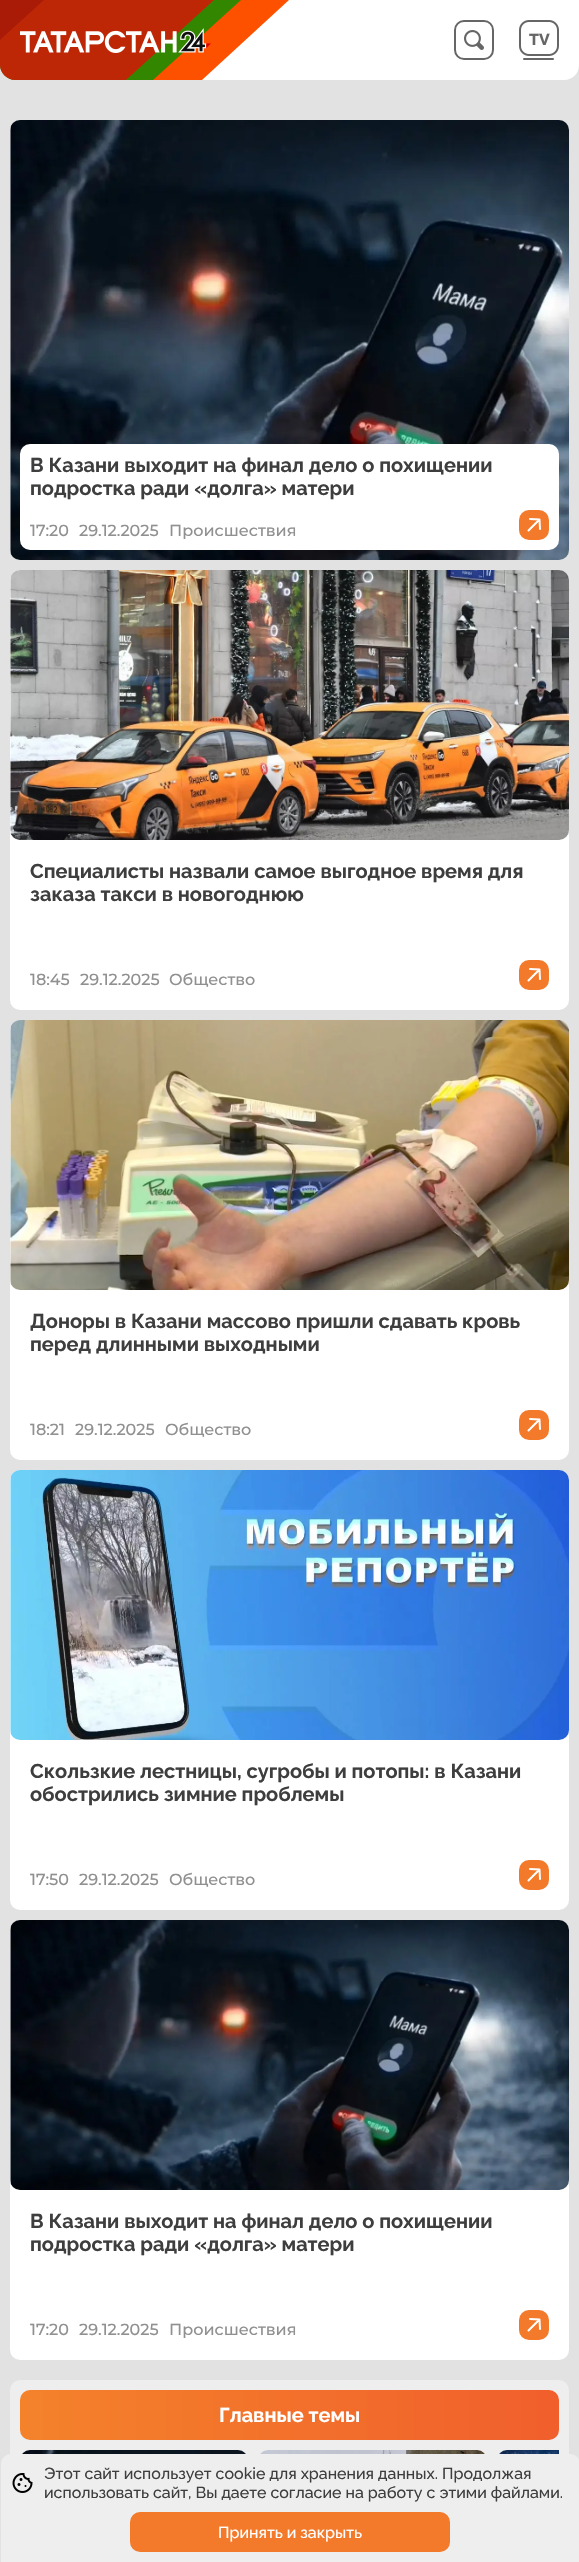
#include "include/core/SkBlurTypes.h"
#include "include/core/SkCanvas.h"
#include "include/core/SkData.h"
#include "include/core/SkFont.h"
#include "include/core/SkFontMgr.h"
#include "include/core/SkImage.h"
#include "include/core/SkMaskFilter.h"
#include "include/core/SkPaint.h"
#include "include/core/SkPathBuilder.h"
#include "include/core/SkTextBlob.h"
#include "include/effects/SkDashPathEffect.h"
#include "include/effects/SkGradientShader.h"
#include "include/utils/SkParsePath.h"

extern sk_sp<SkFontMgr> fontMgr;

static SkFont font(const char* family, int weight, float size, bool italic = false) {
    SkFontStyle style(weight, SkFontStyle::kNormal_Width,
        italic ? SkFontStyle::kItalic_Slant : SkFontStyle::kUpright_Slant);
    SkFont result(fontMgr->matchFamilyStyle(family, style), size);
    result.setSubpixel(true);
    return result;
}

static void drawLabel(SkCanvas* canvas, const char* s, float x, float y, const SkFont& font, SkColor color) {
    SkPaint ink(SkColor4f::FromColor(color));
    ink.setAntiAlias(true);
    canvas->drawString(s, x, y, font, ink);
}

static void fillRRect(SkCanvas* canvas, float x, float y, float w, float h, float radius, SkColor color) {
    SkPaint ink(SkColor4f::FromColor(color));
    ink.setAntiAlias(true);
    canvas->drawRoundRect(SkRect::MakeXYWH(x, y, w, h), radius, radius, ink);
}

static void drawPhoto(SkCanvas* canvas, const char* path, float x, float y, float w, float h) {
    auto image = SkImages::DeferredFromEncodedData(SkData::MakeFromFileName(path));
    canvas->drawImageRect(image, SkRect::MakeXYWH(x, y, w, h), SkSamplingOptions());
}

static SkPath parsePath(const char* data, bool evenOdd = false) {
    SkPath result = *SkParsePath::FromSVGString(data);
    if (evenOdd) result.setFillType(SkPathFillType::kEvenOdd);
    return result;
}

void draw(SkCanvas* canvas) {
    SkPaint paint;
    paint.setAntiAlias(true);
    canvas->clear(0xFFE2E2E2);
    paint.setColor(0xFFFFFFFF);
    canvas->drawPath(parsePath("M0 0H579V65C579 73.5 572.5 80 564 80H15C6.5 80 0 73.5 0 65Z"), paint);
    paint.setColor(0xFFFE5100);
    canvas->drawPath(parsePath("M289 0H112L24 80H202Z"), paint);
    paint.setColor(0xFF328600);
    canvas->drawPath(parsePath("M241 0H63L0 58V65C0 73 7 80 15 80H153Z"), paint);
    paint.setColor(0xFFBD2706);
    canvas->drawPath(parsePath("M214 0H16L0 14V65C0 73 7 80 15 80H126Z"), paint);
    paint.setColor(0xFFA91B07);
    canvas->drawPath(parsePath("M0 0V40L44 0Z"), paint);
    drawPhoto(canvas, "assets/img1.png", 20, 28, 191, 25);
    paint.setStroke(true);
    paint.setStrokeWidth(2);
    paint.setColor(0xFF666666);
    canvas->drawRoundRect(SkRect::MakeXYWH(455, 21, 38, 38), 9, 9, paint);
    drawPhoto(canvas, "assets/img2.png", 464, 30, 20, 20);
    drawPhoto(canvas, "assets/img3.png", 519, 20, 40, 40);
    drawPhoto(canvas, "assets/img4.png", 10, 120, 559, 440);
    fillRRect(canvas, 20, 444, 539, 106, 10, 0xFFFFFFFF);
    SkFont font1 = font("Raleway", 700, 20);
    drawLabel(canvas, "В Казани выходит на финал дело о похищении", 30, 472, font1, 0xFF3E3E3E);
    drawLabel(canvas, "подростка ради «долга» матери", 30, 495, font1, 0xFF3E3E3E);
    SkFont font2 = font("Montserrat", 500, 16);
    drawLabel(canvas, "17:20", 30, 536, font2, 0xFF909090);
    drawLabel(canvas, "29.12.2025", 79, 536, font2, 0xFF909090);
    drawLabel(canvas, "Происшествия", 169, 536, font2, 0xFF909090);
    fillRRect(canvas, 519, 510, 30, 30, 10, 0xFFF37A2B);
    paint.setStrokeCap(SkPaint::kRound_Cap);
    paint.setStrokeJoin(SkPaint::kRound_Join);
    paint.setColor(0xFFFFFFFF);
    canvas->drawPath(parsePath("M528.5 530.5L539.5 519.5M539.5 519.5L530 519M539.5 519.5L540 529"), paint);
    fillRRect(canvas, 10, 570, 559, 440, 10, 0xFFFFFFFF);
    drawPhoto(canvas, "assets/img5.png", 10, 570, 559, 270);
    drawLabel(canvas, "Специалисты назвали самое выгодное время для", 30, 878, font1, 0xFF3E3E3E);
    drawLabel(canvas, "заказа такси в новогоднюю", 30, 901, font1, 0xFF3E3E3E);
    drawLabel(canvas, "18:45", 30, 985, font2, 0xFF909090);
    drawLabel(canvas, "29.12.2025", 80, 985, font2, 0xFF909090);
    drawLabel(canvas, "Общество", 169, 985, font2, 0xFF909090);
    fillRRect(canvas, 519, 960, 30, 30, 10, 0xFFF37A2B);
    canvas->drawPath(parsePath("M528.5 980.5L539.5 969.5M539.5 969.5L530 969M539.5 969.5L540 979"), paint);
    fillRRect(canvas, 10, 1020, 559, 440, 10, 0xFFFFFFFF);
    drawPhoto(canvas, "assets/img6.png", 10, 1020, 559, 270);
    drawLabel(canvas, "Доноры в Казани массово пришли сдавать кровь", 30, 1328, font1, 0xFF3E3E3E);
    drawLabel(canvas, "перед длинными выходными", 30, 1351, font1, 0xFF3E3E3E);
    drawLabel(canvas, "18:21", 30, 1435, font2, 0xFF909090);
    drawLabel(canvas, "29.12.2025", 75, 1435, font2, 0xFF909090);
    drawLabel(canvas, "Общество", 165, 1435, font2, 0xFF909090);
    fillRRect(canvas, 519, 1410, 30, 30, 10, 0xFFF37A2B);
    canvas->drawPath(parsePath("M528.5 1430.5L539.5 1419.5M539.5 1419.5L530 1419M539.5 1419.5L540 1429"), paint);
    fillRRect(canvas, 10, 1470, 559, 440, 10, 0xFFFFFFFF);
    drawPhoto(canvas, "assets/img7.png", 10, 1470, 559, 270);
    drawLabel(canvas, "Скользкие лестницы, сугробы и потопы: в Казани", 30, 1778, font1, 0xFF3E3E3E);
    drawLabel(canvas, "обострились зимние проблемы", 30, 1801, font1, 0xFF3E3E3E);
    drawLabel(canvas, "17:50", 30, 1885, font2, 0xFF909090);
    drawLabel(canvas, "29.12.2025", 79, 1885, font2, 0xFF909090);
    drawLabel(canvas, "Общество", 169, 1885, font2, 0xFF909090);
    fillRRect(canvas, 519, 1860, 30, 30, 10, 0xFFF37A2B);
    canvas->drawPath(parsePath("M528.5 1880.5L539.5 1869.5M539.5 1869.5L530 1869M539.5 1869.5L540 1879"), paint);
    fillRRect(canvas, 10, 1920, 559, 440, 10, 0xFFFFFFFF);
    drawPhoto(canvas, "assets/img8.png", 10, 1920, 559, 270);
    drawLabel(canvas, "В Казани выходит на финал дело о похищении", 30, 2228, font1, 0xFF3E3E3E);
    drawLabel(canvas, "подростка ради «долга» матери", 30, 2251, font1, 0xFF3E3E3E);
    drawLabel(canvas, "17:20", 30, 2335, font2, 0xFF909090);
    drawLabel(canvas, "29.12.2025", 79, 2335, font2, 0xFF909090);
    drawLabel(canvas, "Происшествия", 169, 2335, font2, 0xFF909090);
    fillRRect(canvas, 519, 2310, 30, 30, 10, 0xFFF37A2B);
    canvas->drawPath(parsePath("M528.5 2330.5L539.5 2319.5M539.5 2319.5L530 2319M539.5 2319.5L540 2329"), paint);
    fillRRect(canvas, 10, 2380, 559, 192, 10, 0xFFEEEEEE);
    paint.setStroke(false);
    {
        const SkColor colors[] = {0xFFF4822B, 0xFFF15F2C};
        const float stops[] = {0, 1};
        const SkPoint ends[] = {{20, 2415}, {559, 2415}};
        paint.setShader(SkGradientShader::MakeLinear(ends, colors, stops, 2, SkTileMode::kClamp));
        paint.setAlpha(255);
    }
    canvas->drawRoundRect(SkRect::MakeXYWH(20, 2390, 539, 50), 10, 10, paint);
    drawLabel(canvas, "Главные темы", 219, 2422, font1, 0xFFFFFFFF);
    fillRRect(canvas, 20, 2450, 228, 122, 10, 0xFFFFFFFF);
    drawPhoto(canvas, "assets/img9.png", 22, 2450, 224, 4);
    fillRRect(canvas, 258, 2450, 229, 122, 10, 0xFFFFFFFF);
    drawPhoto(canvas, "assets/img10.png", 260, 2450, 225, 4);
    paint.setShader(nullptr);
    paint.setColor(0xFFFFFFFF);
    canvas->drawPath(parsePath("M507 2450H559V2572H507C501.5 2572 497 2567.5 497 2562V2460C497 2454.5 501.5 2450 507 2450Z"), paint);
    drawPhoto(canvas, "assets/img11.png", 499, 2450, 60, 4);
    paint.setColor(0xFFEEEEEE);
    canvas->drawPath(parsePath("M11 2454H570C575.5 2454 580 2458.5 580 2464V2562H1V2464C1 2458.5 5.5 2454 11 2454Z"), paint);
    drawPhoto(canvas, "assets/img12.png", 12, 2473, 21, 20);
    SkFont font3 = font("Raleway", 500, 16);
    drawLabel(canvas, "Этот сайт использует cookie для хранения данных. Продолжая", 44, 2479, font3, 0xFF3E3E3E);
    drawLabel(canvas, "использовать сайт, Вы даете согласие на работу с этими файлами.", 44, 2498, font3, 0xFF3E3E3E);
    fillRRect(canvas, 130, 2512, 320, 40, 10, 0xFFF37A2B);
    drawLabel(canvas, "Принять и закрыть", 218, 2538, font3, 0xFFFFFFFF);
}
